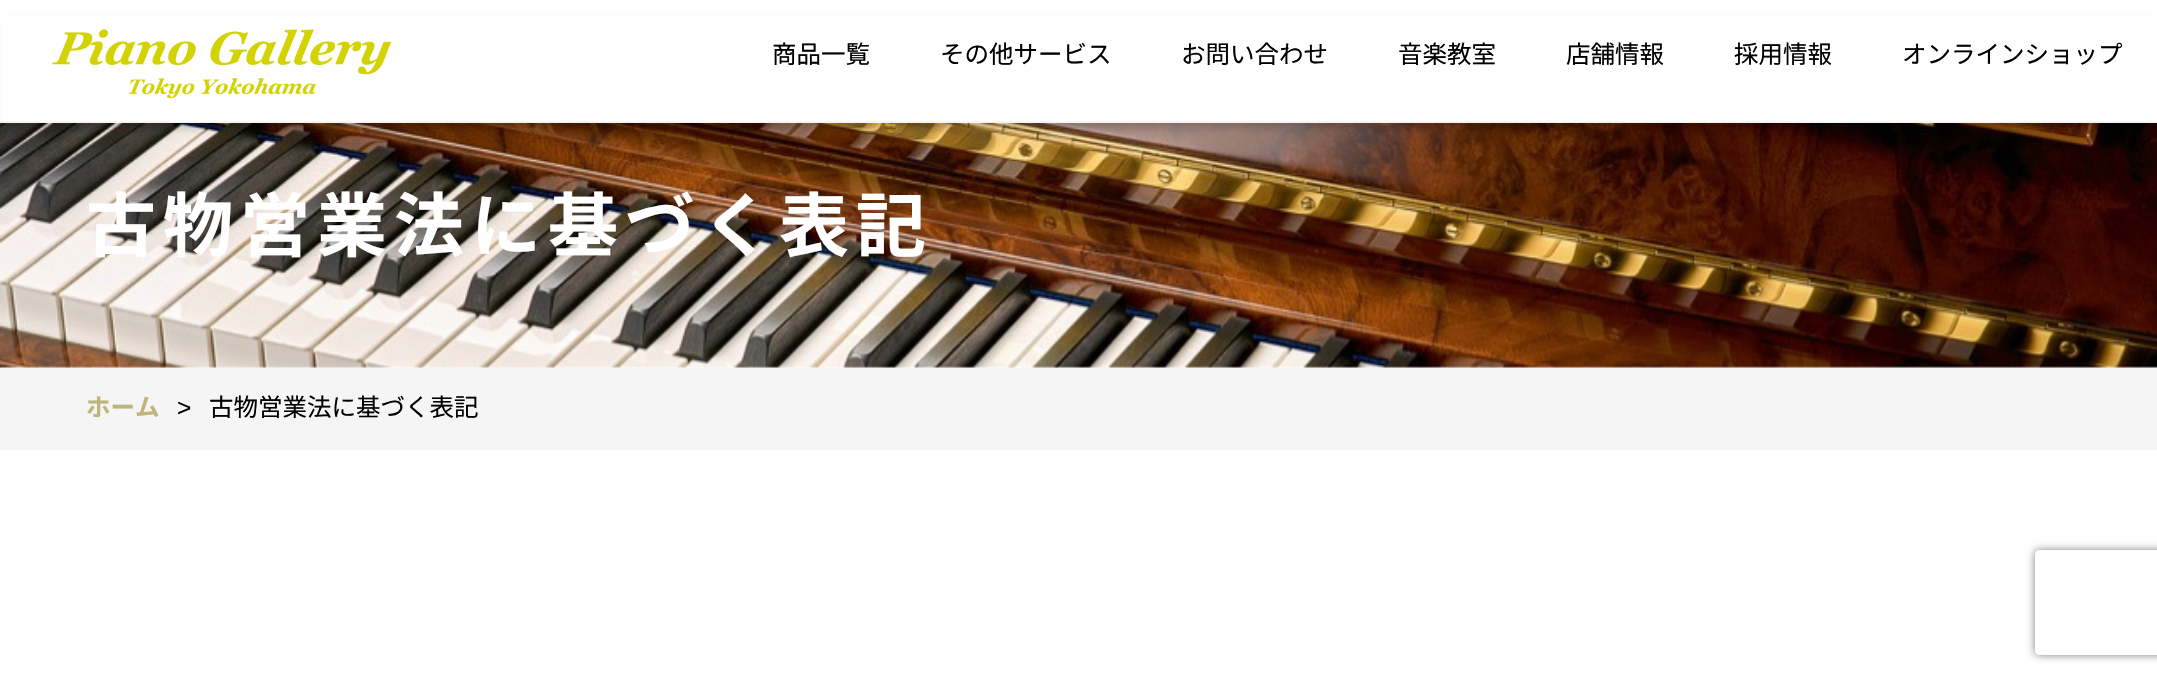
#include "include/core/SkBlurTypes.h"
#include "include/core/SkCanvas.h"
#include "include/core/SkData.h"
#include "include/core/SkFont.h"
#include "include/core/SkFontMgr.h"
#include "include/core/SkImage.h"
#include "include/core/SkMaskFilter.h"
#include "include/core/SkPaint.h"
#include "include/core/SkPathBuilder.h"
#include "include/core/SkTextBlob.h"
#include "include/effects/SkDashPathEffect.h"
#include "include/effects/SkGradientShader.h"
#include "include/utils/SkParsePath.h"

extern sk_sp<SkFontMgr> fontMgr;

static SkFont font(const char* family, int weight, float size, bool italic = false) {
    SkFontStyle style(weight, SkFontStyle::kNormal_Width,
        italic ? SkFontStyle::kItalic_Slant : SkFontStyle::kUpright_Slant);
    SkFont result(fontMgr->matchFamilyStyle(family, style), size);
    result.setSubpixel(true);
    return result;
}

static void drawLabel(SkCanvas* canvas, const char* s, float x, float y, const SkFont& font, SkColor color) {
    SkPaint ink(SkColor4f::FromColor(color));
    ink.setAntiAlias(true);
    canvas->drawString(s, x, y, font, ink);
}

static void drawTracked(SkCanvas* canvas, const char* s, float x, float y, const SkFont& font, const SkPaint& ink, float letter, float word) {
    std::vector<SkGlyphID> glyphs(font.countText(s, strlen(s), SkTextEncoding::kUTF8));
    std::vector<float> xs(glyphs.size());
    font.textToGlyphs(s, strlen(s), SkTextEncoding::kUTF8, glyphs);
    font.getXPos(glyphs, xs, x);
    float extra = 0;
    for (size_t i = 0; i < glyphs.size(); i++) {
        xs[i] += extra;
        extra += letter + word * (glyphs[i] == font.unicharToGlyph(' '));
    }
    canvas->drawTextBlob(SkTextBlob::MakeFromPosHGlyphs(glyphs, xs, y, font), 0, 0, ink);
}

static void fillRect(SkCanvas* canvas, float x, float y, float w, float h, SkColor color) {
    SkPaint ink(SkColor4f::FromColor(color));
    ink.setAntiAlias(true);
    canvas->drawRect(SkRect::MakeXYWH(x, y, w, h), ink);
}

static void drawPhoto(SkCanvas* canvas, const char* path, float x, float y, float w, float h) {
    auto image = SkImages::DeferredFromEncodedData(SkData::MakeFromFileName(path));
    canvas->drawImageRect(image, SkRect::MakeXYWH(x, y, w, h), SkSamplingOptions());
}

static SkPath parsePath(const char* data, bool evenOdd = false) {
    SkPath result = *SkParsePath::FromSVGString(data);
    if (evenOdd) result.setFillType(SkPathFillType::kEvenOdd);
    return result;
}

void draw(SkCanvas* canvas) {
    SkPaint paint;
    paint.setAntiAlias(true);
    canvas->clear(0xFFFFFFFF);
    fillRect(canvas, 0, 366, 2157, 2, 0xFFFBFBFB);
    drawPhoto(canvas, "assets/img2.png", 0, 123, 2157, 245);
    paint.setColor(0x33000000);
    paint.setMaskFilter(SkMaskFilter::MakeBlur(kNormal_SkBlurStyle, 4.5f));
    canvas->drawRect(SkRect::MakeXYWH(9, 23, 2140, 105), paint);
    paint.setMaskFilter(nullptr);
    fillRect(canvas, 2, 16, 2154, 105, 0xFFFFFFFF);
    fillRect(canvas, 0, 121, 2157, 2, 0xFFF5F5F5);
    drawPhoto(canvas, "assets/img1.png", 52, 29, 340, 70);
    SkFont font1 = font("Noto Sans JP", 400, 24.5f);
    drawLabel(canvas, "商品一覧", 772, 63, font1, 0xFF000000);
    drawLabel(canvas, "その他サービス", 940, 63, font1, 0xFF000000);
    drawLabel(canvas, "お問い合わせ", 1181, 63, font1, 0xFF000000);
    drawLabel(canvas, "音楽教室", 1398, 63, font1, 0xFF000000);
    drawLabel(canvas, "店舗情報", 1566, 63, font1, 0xFF000000);
    drawLabel(canvas, "採用情報", 1734, 63, font1, 0xFF000000);
    drawLabel(canvas, "オンラインショップ", 1902, 63, font1, 0xFF000000);
    SkFont font2 = font("Noto Sans JP", 700, 70);
    paint.setColor(0xFFFFFFFF);
    drawTracked(canvas, "古物営業法に基づく表記", 86, 251, font2, paint, 7, 0);
    fillRect(canvas, 0, 368, 2157, 82, 0xFFF5F5F5);
    SkFont font3 = font("Noto Sans JP", 700, 24.5f);
    drawLabel(canvas, "ホーム", 86, 416, font3, 0xFFBFB57C);
    SkFont font4 = font("Liberation Sans", 400, 24.5f);
    drawLabel(canvas, ">", 177, 416, font4, 0xFF000000);
    drawLabel(canvas, "古物営業法に基づく表記", 209, 416, font1, 0xFF000000);
    canvas->save();
    canvas->clipPath(parsePath("M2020 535H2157V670H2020ZM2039 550H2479C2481 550 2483 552 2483 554V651C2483 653 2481 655 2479 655H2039C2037 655 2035 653 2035 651V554C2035 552 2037 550 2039 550Z", true), true);
    paint.setColor(0xFF808080);
    paint.setMaskFilter(SkMaskFilter::MakeBlur(kNormal_SkBlurStyle, 4.5f));
    canvas->drawRoundRect(SkRect::MakeXYWH(2035, 550, 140, 105), 4, 4, paint);
    paint.setMaskFilter(nullptr);
    canvas->restore();
}
